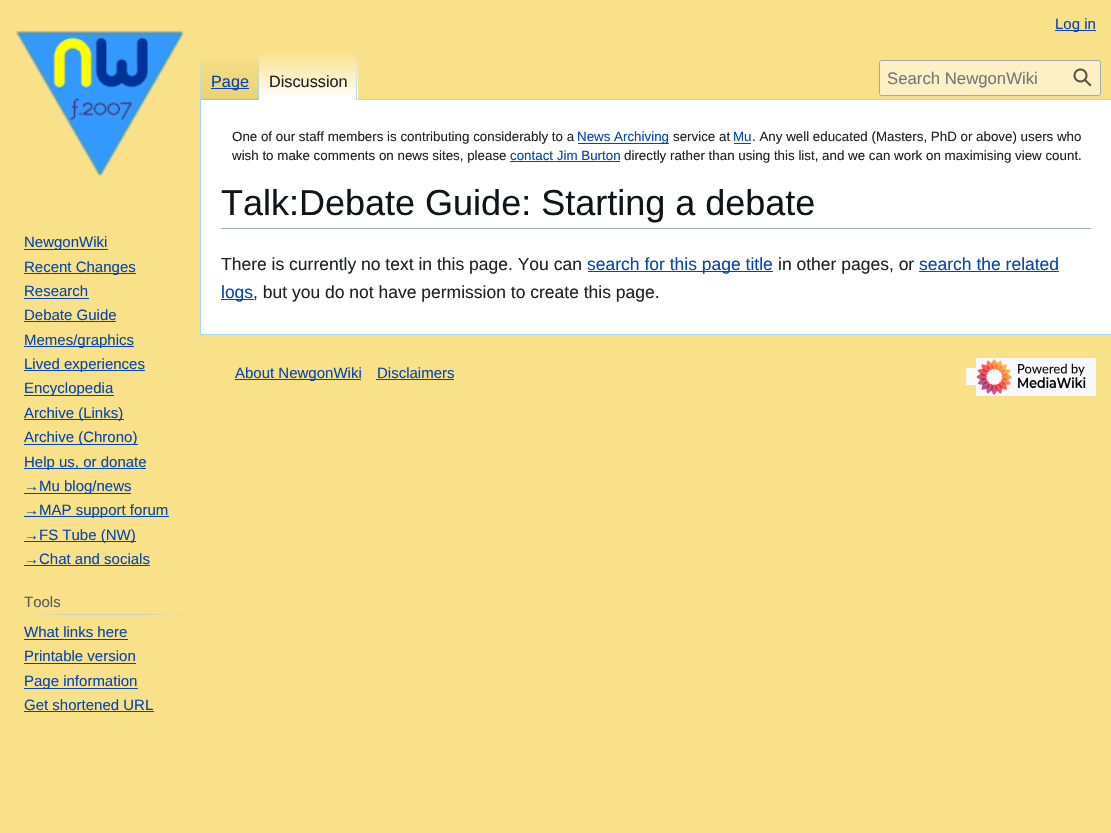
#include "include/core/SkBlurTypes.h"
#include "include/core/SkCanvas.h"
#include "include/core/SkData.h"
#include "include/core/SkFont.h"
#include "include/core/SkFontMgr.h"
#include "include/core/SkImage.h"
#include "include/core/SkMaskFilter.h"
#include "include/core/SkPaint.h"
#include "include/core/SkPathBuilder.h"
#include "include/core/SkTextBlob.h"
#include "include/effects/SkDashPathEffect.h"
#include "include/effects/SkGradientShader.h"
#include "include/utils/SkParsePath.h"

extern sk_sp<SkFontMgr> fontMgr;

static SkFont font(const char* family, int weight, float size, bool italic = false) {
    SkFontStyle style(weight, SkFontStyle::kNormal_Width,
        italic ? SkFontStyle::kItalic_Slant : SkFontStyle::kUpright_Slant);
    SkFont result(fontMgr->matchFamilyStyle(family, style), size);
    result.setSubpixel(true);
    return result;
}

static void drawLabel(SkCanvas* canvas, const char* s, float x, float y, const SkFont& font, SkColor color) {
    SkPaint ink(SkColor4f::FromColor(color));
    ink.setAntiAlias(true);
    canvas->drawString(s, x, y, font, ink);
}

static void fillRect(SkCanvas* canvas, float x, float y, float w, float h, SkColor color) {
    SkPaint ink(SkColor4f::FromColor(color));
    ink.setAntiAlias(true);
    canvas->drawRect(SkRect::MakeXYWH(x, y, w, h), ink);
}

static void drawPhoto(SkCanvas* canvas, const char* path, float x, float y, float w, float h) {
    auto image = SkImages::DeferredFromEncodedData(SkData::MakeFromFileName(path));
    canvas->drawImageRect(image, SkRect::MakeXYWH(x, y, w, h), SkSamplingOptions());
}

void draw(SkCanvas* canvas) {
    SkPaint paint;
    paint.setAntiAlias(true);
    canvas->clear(0xFFF9E189);
    fillRect(canvas, 1055, 30, 41, 1, 0xFF0645AD);
    SkFont font1 = font("Liberation Sans", 400, 15);
    drawLabel(canvas, "Log in", 1055, 29, font1, 0xFF0645AD);
    fillRect(canvas, 200, 334, 911, 1, 0xFFA7D7F9);
    fillRect(canvas, 200, 99, 1, 236, 0xFFA7D7F9);
    {
        const SkColor colors[] = {0x00A7D7F9, 0xFFA7D7F9};
        const float stops[] = {0, 1};
        const SkPoint ends[] = {{201, 50}, {201, 100}};
        paint.setShader(SkGradientShader::MakeLinear(ends, colors, stops, 2, SkTileMode::kClamp));
        paint.setAlpha(255);
    }
    canvas->drawRect(SkRect::MakeXYWH(200, 50, 1, 50), paint);
    {
        const SkColor colors[] = {0xFF77C1F6, 0xFFE9D179, 0xFFF9E189};
        const float stops[] = {0, 0.03f, 1};
        const SkPoint ends[] = {{230, 100}, {230, 50}};
        paint.setShader(SkGradientShader::MakeLinear(ends, colors, stops, 3, SkTileMode::kClamp));
        paint.setAlpha(255);
    }
    canvas->drawRect(SkRect::MakeXYWH(201, 58, 58, 42), paint);
    {
        const SkColor colors[] = {0x00A7D7F9, 0xFFA7D7F9};
        const float stops[] = {0, 1};
        const SkPoint ends[] = {{258, 50}, {258, 100}};
        paint.setShader(SkGradientShader::MakeLinear(ends, colors, stops, 2, SkTileMode::kClamp));
        paint.setAlpha(255);
    }
    canvas->drawRect(SkRect::MakeXYWH(258, 50, 1, 50), paint);
    fillRect(canvas, 211, 88, 38, 1, 0xFF0645AD);
    SkFont font2 = font("Liberation Sans", 400, 16.25f);
    drawLabel(canvas, "Page", 211, 87, font2, 0xFF0645AD);
    {
        const SkColor colors[] = {0xFFF9E189, 0xFFFFFFFF};
        const float stops[] = {0.02f, 1};
        const SkPoint ends[] = {{308, 50}, {308, 100}};
        paint.setShader(SkGradientShader::MakeLinear(ends, colors, stops, 2, SkTileMode::kClamp));
        paint.setAlpha(255);
    }
    canvas->drawRect(SkRect::MakeXYWH(259, 52, 99, 48), paint);
    {
        const SkColor colors[] = {0x00A7D7F9, 0xFFA7D7F9};
        const float stops[] = {0, 1};
        const SkPoint ends[] = {{357, 50}, {357, 100}};
        paint.setShader(SkGradientShader::MakeLinear(ends, colors, stops, 2, SkTileMode::kClamp));
        paint.setAlpha(255);
    }
    canvas->drawRect(SkRect::MakeXYWH(356, 50, 1, 50), paint);
    drawLabel(canvas, "Discussion", 269, 87, font2, 0xFF202122);
    paint.setShader(nullptr);
    paint.setColor(0xFFFCF0C4);
    canvas->drawRoundRect(SkRect::MakeXYWH(879.5f, 60.5f, 221, 35), 2, 2, paint);
    paint.setStroke(true);
    paint.setStrokeWidth(1);
    paint.setColor(0xFFA2A9B1);
    canvas->drawRoundRect(SkRect::MakeXYWH(879.5f, 60.5f, 221, 35), 2, 2, paint);
    SkFont font3 = font("Liberation Sans", 400, 16.75f);
    drawLabel(canvas, "Search NewgonWiki", 887, 84, font3, 0xFF72777D);
    drawPhoto(canvas, "assets/img1.png", 1073, 68, 19, 19);
    drawPhoto(canvas, "assets/img2.png", 16, 30, 168, 147);
    fillRect(canvas, 24, 249, 84, 1, 0xFF0645AD);
    drawLabel(canvas, "NewgonWiki", 24, 247, font1, 0xFF0645AD);
    fillRect(canvas, 24, 273, 112, 1, 0xFF0645AD);
    drawLabel(canvas, "Recent Changes", 24, 272, font1, 0xFF0645AD);
    drawLabel(canvas, "Research", 24, 296, font1, 0xFF0645AD);
    fillRect(canvas, 24, 298, 65, 1, 0xFF0645AD);
    drawLabel(canvas, "Debate Guide", 24, 320, font1, 0xFF0645AD);
    fillRect(canvas, 24, 321, 92, 1, 0xFF0645AD);
    fillRect(canvas, 24, 346, 110, 1, 0xFF0645AD);
    drawLabel(canvas, "Memes/graphics", 24, 345, font1, 0xFF0645AD);
    fillRect(canvas, 24, 370, 121, 1, 0xFF0645AD);
    drawLabel(canvas, "Lived experiences", 24, 369, font1, 0xFF0645AD);
    fillRect(canvas, 24, 395, 90, 1, 0xFF0645AD);
    drawLabel(canvas, "Encyclopedia", 24, 393, font1, 0xFF0645AD);
    fillRect(canvas, 24, 419, 100, 1, 0xFF0645AD);
    drawLabel(canvas, "Archive (Links)", 24, 418, font1, 0xFF0645AD);
    fillRect(canvas, 24, 444, 114, 1, 0xFF0645AD);
    drawLabel(canvas, "Archive (Chrono)", 24, 442, font1, 0xFF0645AD);
    fillRect(canvas, 24, 468, 122, 1, 0xFF0645AD);
    drawLabel(canvas, "Help us, or donate", 24, 467, font1, 0xFF0645AD);
    fillRect(canvas, 24, 493, 107, 1, 0xFF0645AD);
    drawLabel(canvas, "→Mu blog/news", 24, 491, font1, 0xFF0645AD);
    fillRect(canvas, 24, 516, 145, 1, 0xFF0645AD);
    drawLabel(canvas, "→MAP support forum", 24, 515, font1, 0xFF0645AD);
    fillRect(canvas, 24, 541, 112, 1, 0xFF0645AD);
    drawLabel(canvas, "→FS Tube (NW)", 24, 540, font1, 0xFF0645AD);
    drawLabel(canvas, "→Chat and socials", 24, 564, font1, 0xFF0645AD);
    fillRect(canvas, 24, 565, 126, 1, 0xFF0645AD);
    paint.setStroke(false);
    {
        const SkColor colors[] = {0xFFF9E189, 0xFFC8CCD1, 0xFFC8CCD1, 0xFFF9E189};
        const float stops[] = {0, 0.33f, 0.66f, 1};
        const SkPoint ends[] = {{24, 614}, {188, 614}};
        paint.setShader(SkGradientShader::MakeLinear(ends, colors, stops, 4, SkTileMode::kClamp));
        paint.setAlpha(255);
    }
    canvas->drawRect(SkRect::MakeXYWH(24, 614, 164, 1), paint);
    drawLabel(canvas, "Tools", 24, 607, font1, 0xFF54595D);
    drawLabel(canvas, "What links here", 24, 637, font1, 0xFF0645AD);
    fillRect(canvas, 24, 639, 104, 1, 0xFF0645AD);
    drawLabel(canvas, "Printable version", 24, 661, font1, 0xFF0645AD);
    fillRect(canvas, 24, 663, 112, 1, 0xFF0645AD);
    fillRect(canvas, 24, 688, 114, 1, 0xFF0645AD);
    drawLabel(canvas, "Page information", 24, 686, font1, 0xFF0645AD);
    drawLabel(canvas, "Get shortened URL", 24, 710, font1, 0xFF0645AD);
    fillRect(canvas, 24, 711, 130, 1, 0xFF0645AD);
    fillRect(canvas, 201, 100, 910, 234, 0xFFFFFFFF);
    fillRect(canvas, 358, 99, 753, 1, 0xFFA7D7F9);
    SkFont font4 = font("Liberation Sans", 400, 13.35f);
    drawLabel(canvas, "One of our staff members is contributing considerably to a", 232, 141, font4, 0xFF202122);
    fillRect(canvas, 578, 143, 91, 1, 0xFF0645AD);
    drawLabel(canvas, "News Archiving", 577, 141, font4, 0xFF0645AD);
    drawLabel(canvas, "service at", 673, 141, font4, 0xFF202122);
    drawLabel(canvas, "Mu", 733, 141, font4, 0xFF0645AD);
    drawLabel(canvas, ". Any well educated (Masters, PhD or above) users who", 752, 141, font4, 0xFF202122);
    fillRect(canvas, 734, 143, 17, 1, 0xFF0645AD);
    drawLabel(canvas, "wish to make comments on news sites, please", 232, 160, font4, 0xFF202122);
    drawLabel(canvas, "contact Jim Burton", 510, 160, font4, 0xFF0645AD);
    fillRect(canvas, 510, 161, 110, 1, 0xFF0645AD);
    drawLabel(canvas, "directly rather than using this list, and we can work on maximising view count.", 624, 160, font4, 0xFF202122);
    fillRect(canvas, 221, 228, 870, 1, 0xFFA2A9B1);
    SkFont font5 = font("Liberation Sans", 400, 36);
    drawLabel(canvas, "Talk:Debate Guide: Starting a debate", 221, 215, font5, 0xFF101418);
    SkFont font6 = font("Liberation Sans", 400, 17.5f);
    drawLabel(canvas, "There is currently no text in this page. You can", 221, 270, font6, 0xFF202122);
    fillRect(canvas, 588, 271, 185, 1, 0xFF0645AD);
    drawLabel(canvas, "search for this page title", 587, 270, font6, 0xFF0645AD);
    drawLabel(canvas, "in other pages, or", 778, 270, font6, 0xFF202122);
    drawLabel(canvas, "search the related", 919, 270, font6, 0xFF0645AD);
    fillRect(canvas, 919, 271, 140, 1, 0xFF0645AD);
    fillRect(canvas, 221, 299, 33, 1, 0xFF0645AD);
    drawLabel(canvas, "logs", 221, 298, font6, 0xFF0645AD);
    drawLabel(canvas, ", but you do not have permission to create this page.", 253, 298, font6, 0xFF202122);
    fillRect(canvas, 235, 379, 126, 1, 0xFF0645AD);
    drawLabel(canvas, "About NewgonWiki", 235, 378, font1, 0xFF0645AD);
    drawLabel(canvas, "Disclaimers", 377, 378, font1, 0xFF0645AD);
    fillRect(canvas, 376, 379, 78, 1, 0xFF0645AD);
    fillRect(canvas, 976, 358, 120, 38, 0xFFF8F9FA);
    fillRect(canvas, 966, 368, 10, 17, 0xFFF8F9FA);
    drawPhoto(canvas, "assets/img3.png", 976, 359, 110, 36);
}
